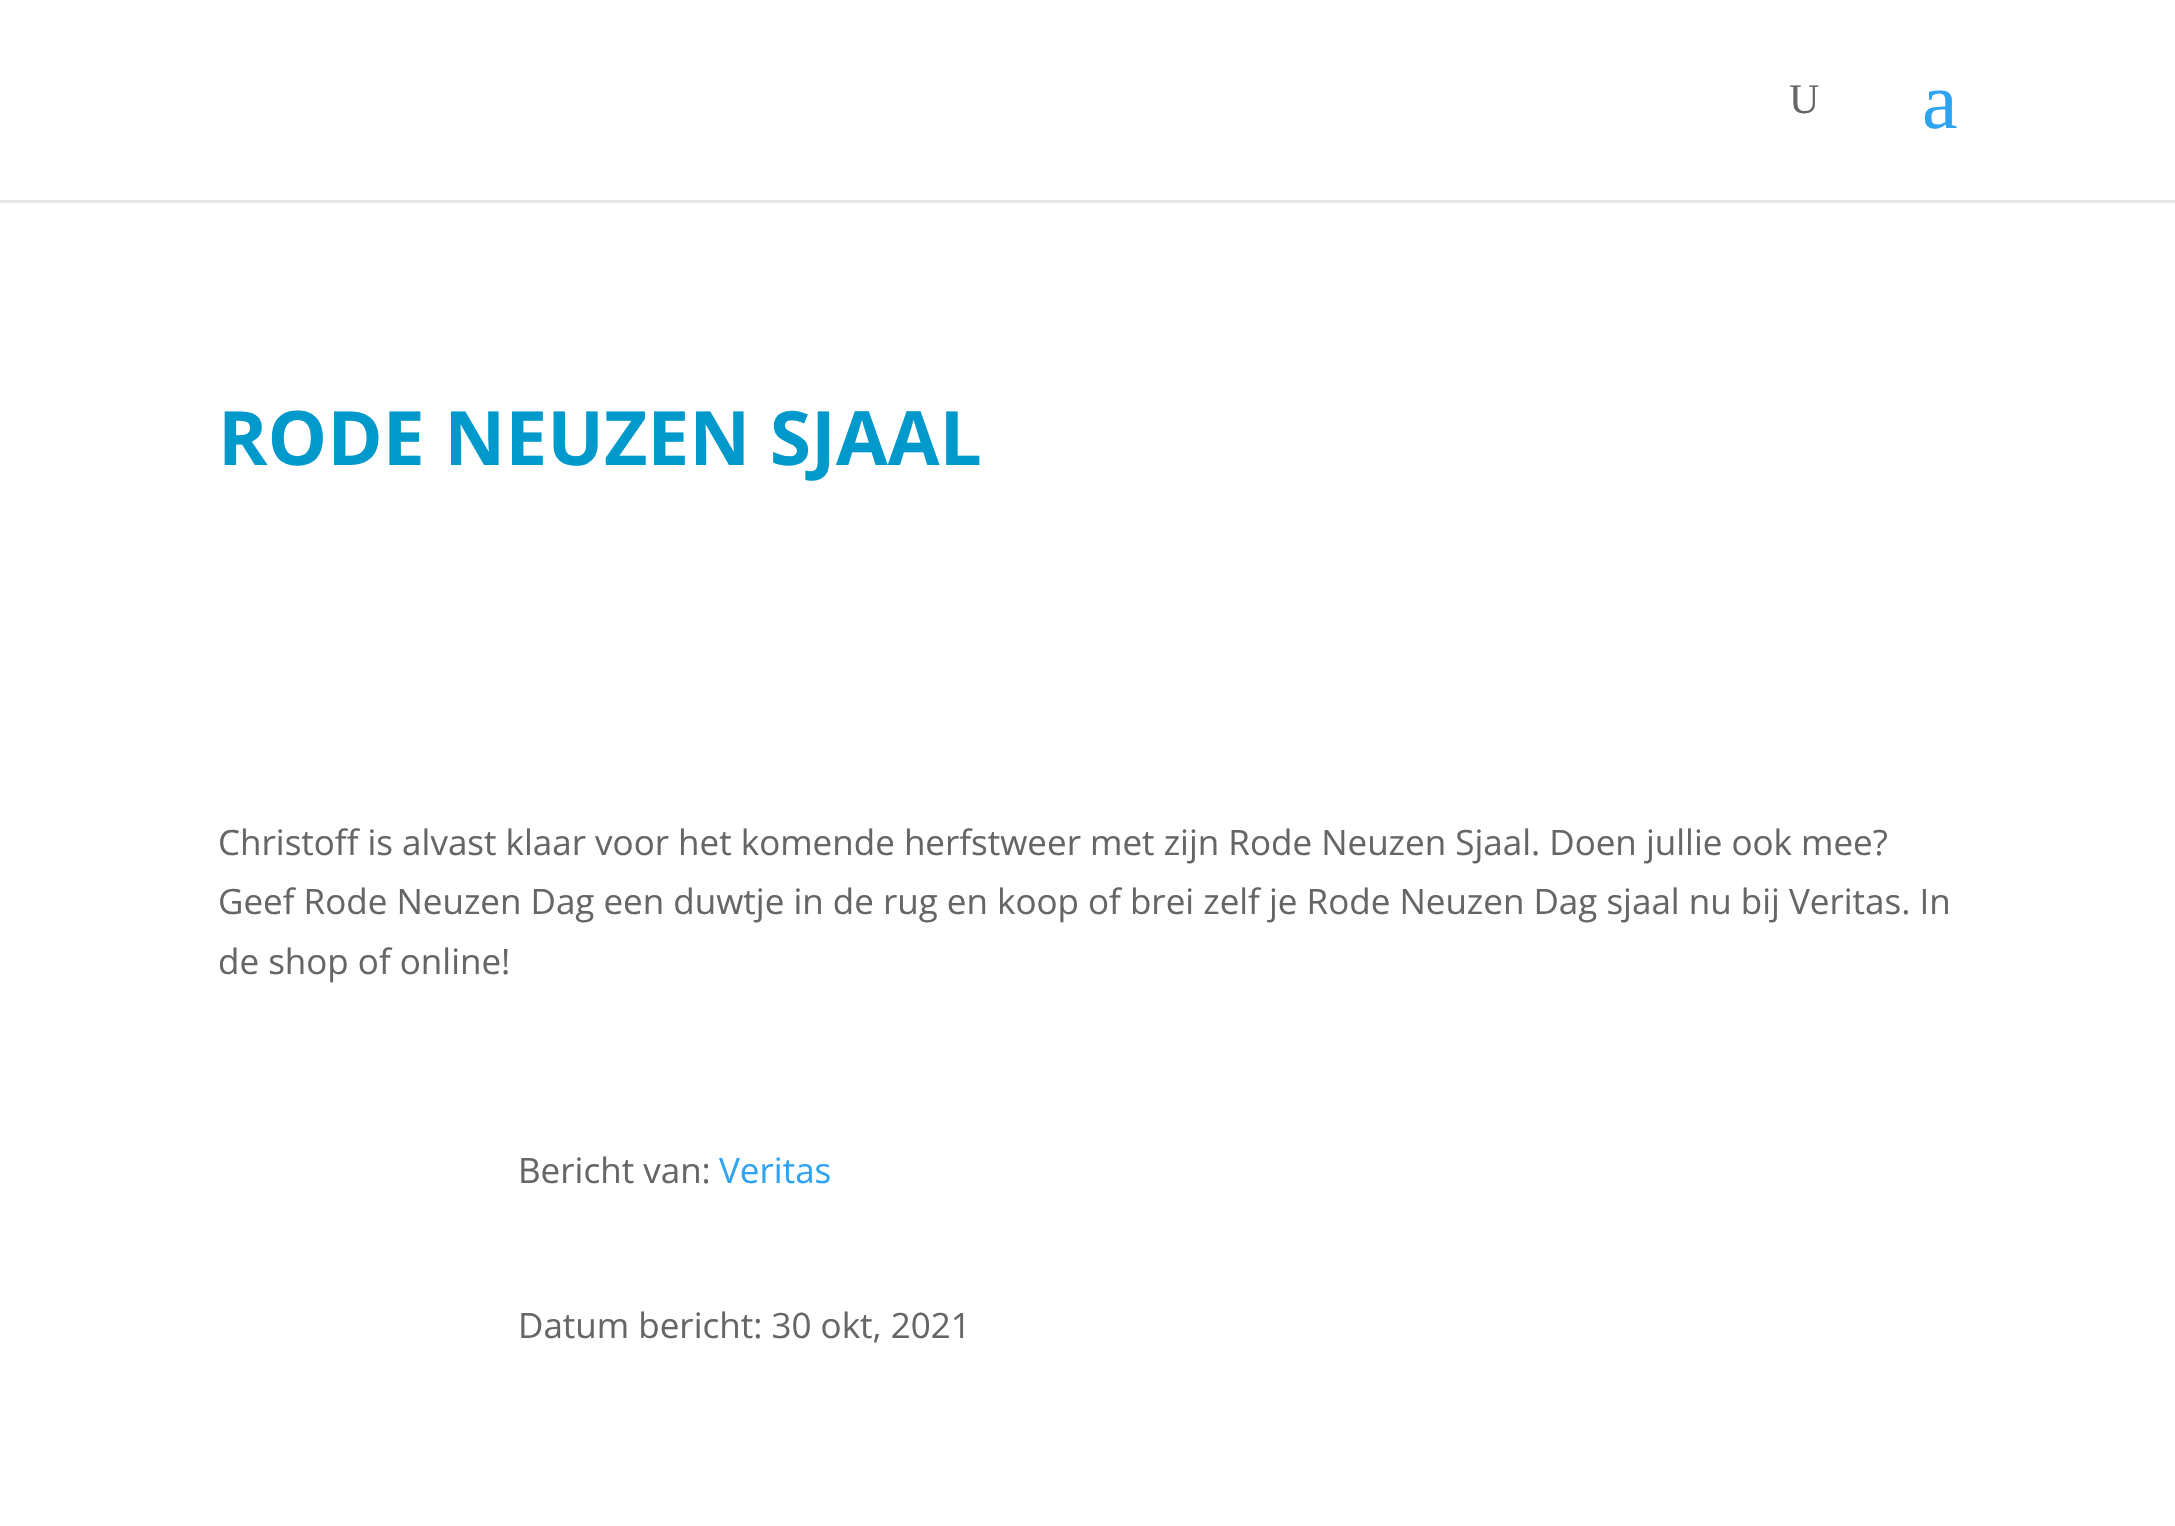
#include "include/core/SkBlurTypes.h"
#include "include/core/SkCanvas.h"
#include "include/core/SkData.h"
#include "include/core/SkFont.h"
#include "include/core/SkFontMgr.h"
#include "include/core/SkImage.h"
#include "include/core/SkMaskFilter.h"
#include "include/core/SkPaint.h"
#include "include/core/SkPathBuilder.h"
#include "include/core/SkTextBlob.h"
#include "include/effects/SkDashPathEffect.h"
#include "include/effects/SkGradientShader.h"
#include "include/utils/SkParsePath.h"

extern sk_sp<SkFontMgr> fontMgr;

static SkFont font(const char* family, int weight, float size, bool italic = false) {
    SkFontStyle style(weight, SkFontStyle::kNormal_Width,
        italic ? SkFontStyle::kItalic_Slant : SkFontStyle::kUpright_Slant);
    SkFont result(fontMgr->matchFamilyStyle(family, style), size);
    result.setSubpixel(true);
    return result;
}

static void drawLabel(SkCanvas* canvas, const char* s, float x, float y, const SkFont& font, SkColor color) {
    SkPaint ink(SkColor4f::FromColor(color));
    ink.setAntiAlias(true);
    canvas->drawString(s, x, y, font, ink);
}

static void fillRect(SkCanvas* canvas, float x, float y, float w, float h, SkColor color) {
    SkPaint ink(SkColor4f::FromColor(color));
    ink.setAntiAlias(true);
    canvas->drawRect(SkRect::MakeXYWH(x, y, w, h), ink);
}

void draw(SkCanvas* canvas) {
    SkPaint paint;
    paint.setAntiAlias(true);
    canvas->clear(0xFFFFFFFF);
    fillRect(canvas, 0, 200, 2175, 3, 0xFFE6E6E6);
    SkFont font1 = font("Liberation Serif", 400, 42);
    drawLabel(canvas, "U", 1789, 113, font1, 0xFF666666);
    SkFont font2 = font("Liberation Serif", 400, 80);
    drawLabel(canvas, "a", 1922, 128, font2, 0xFF2EA3F2);
    SkFont font3 = font("Open Sans", 700, 75);
    drawLabel(canvas, "RODE NEUZEN SJAAL", 218, 465, font3, 0xFF0099CC);
    SkFont font4 = font("Open Sans", 400, 35);
    drawLabel(canvas, "Christoff is alvast klaar voor het komende herfstweer met zijn Rode Neuzen Sjaal. Doen jullie ook mee?", 218, 855, font4, 0xFF666666);
    drawLabel(canvas, "Geef Rode Neuzen Dag een duwtje in de rug en koop of brei zelf je Rode Neuzen Dag sjaal nu bij Veritas. In", 218, 914, font4, 0xFF666666);
    drawLabel(canvas, "de shop of online!", 218, 974, font4, 0xFF666666);
    drawLabel(canvas, "Bericht van:", 518, 1183, font4, 0xFF666666);
    drawLabel(canvas, "Veritas", 719, 1183, font4, 0xFF2EA3F2);
    drawLabel(canvas, "Datum bericht: 30 okt, 2021", 518, 1338, font4, 0xFF666666);
}
